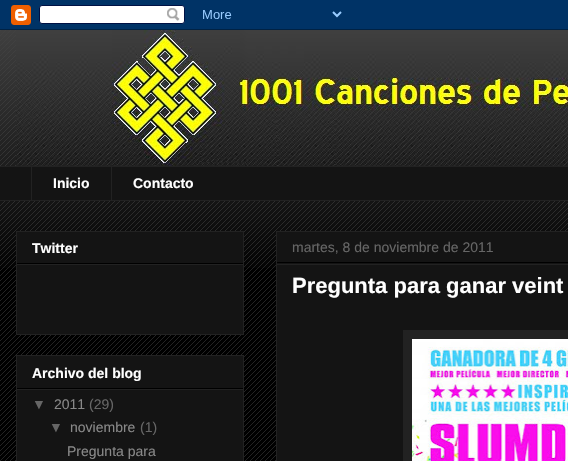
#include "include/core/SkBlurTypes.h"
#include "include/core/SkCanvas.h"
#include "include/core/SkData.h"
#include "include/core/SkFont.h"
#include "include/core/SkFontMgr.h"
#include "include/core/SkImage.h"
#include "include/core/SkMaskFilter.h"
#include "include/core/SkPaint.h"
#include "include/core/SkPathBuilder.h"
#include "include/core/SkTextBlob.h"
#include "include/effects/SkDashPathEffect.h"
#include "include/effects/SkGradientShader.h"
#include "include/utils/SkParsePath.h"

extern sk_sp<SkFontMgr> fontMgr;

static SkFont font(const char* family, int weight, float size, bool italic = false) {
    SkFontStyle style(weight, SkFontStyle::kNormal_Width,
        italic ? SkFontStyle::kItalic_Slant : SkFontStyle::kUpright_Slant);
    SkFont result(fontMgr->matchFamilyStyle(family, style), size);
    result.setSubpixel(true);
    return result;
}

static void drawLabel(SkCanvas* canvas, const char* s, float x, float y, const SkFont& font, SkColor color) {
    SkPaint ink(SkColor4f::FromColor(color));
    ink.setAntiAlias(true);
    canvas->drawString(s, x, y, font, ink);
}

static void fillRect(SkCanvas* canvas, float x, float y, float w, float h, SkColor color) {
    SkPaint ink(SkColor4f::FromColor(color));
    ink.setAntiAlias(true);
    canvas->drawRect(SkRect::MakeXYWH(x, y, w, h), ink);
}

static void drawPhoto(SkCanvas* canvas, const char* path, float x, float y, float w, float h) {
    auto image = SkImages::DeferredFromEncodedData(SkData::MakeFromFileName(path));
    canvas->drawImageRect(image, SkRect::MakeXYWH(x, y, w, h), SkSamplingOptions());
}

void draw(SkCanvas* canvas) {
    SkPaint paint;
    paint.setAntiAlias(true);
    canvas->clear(0xFF000000);
    drawPhoto(canvas, "assets/img1.png", 0, 30, 568, 431);
    drawPhoto(canvas, "assets/img2.png", 0, 0, 568, 30);
    drawPhoto(canvas, "assets/img3.png", 0, 30, 568, 238);
    drawPhoto(canvas, "assets/img4.png", 16, 30, 552, 136);
    fillRect(canvas, 0, 167, 568, 33, 0xFF141414);
    fillRect(canvas, 0, 166, 568, 1, 0xFF222222);
    fillRect(canvas, 31, 166, 1, 35, 0xFF222222);
    SkFont font1 = font("Liberation Sans", 700, 14);
    drawLabel(canvas, "Inicio", 53, 188, font1, 0xFFFFFFFF);
    fillRect(canvas, 111, 166, 1, 35, 0xFF222222);
    drawLabel(canvas, "Contacto", 133, 188, font1, 0xFFFFFFFF);
    fillRect(canvas, 0, 200, 568, 1, 0xFF222222);
    paint.setColor(0xFF141414);
    canvas->drawRect(SkRect::MakeXYWH(16.5f, 231.5f, 227, 103), paint);
    paint.setStroke(true);
    paint.setStrokeWidth(1);
    paint.setColor(0xFF222222);
    canvas->drawRect(SkRect::MakeXYWH(16.5f, 231.5f, 227, 103), paint);
    fillRect(canvas, 17, 263, 226, 1, 0xFF000000);
    drawLabel(canvas, "Twitter", 32, 253, font1, 0xFFFFFFFF);
    fillRect(canvas, 17, 264, 226, 1, 0xFF222222);
    paint.setStroke(false);
    paint.setColor(0xFF141414);
    canvas->drawRect(SkRect::MakeXYWH(16.5f, 355.5f, 227, 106), paint);
    paint.setStroke(true);
    paint.setColor(0xFF222222);
    canvas->drawRect(SkRect::MakeXYWH(16.5f, 355.5f, 227, 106), paint);
    fillRect(canvas, 17, 388, 226, 1, 0xFF000000);
    drawLabel(canvas, "Archivo del blog", 32, 378, font1, 0xFFFFFFFF);
    fillRect(canvas, 17, 389, 226, 1, 0xFF222222);
    SkFont font2 = font("Liberation Sans", 400, 14);
    drawLabel(canvas, "▼", 32, 409, font2, 0xFF666666);
    drawLabel(canvas, "2011", 54, 409, font2, 0xFF888888);
    drawLabel(canvas, "(29)", 89, 409, font2, 0xFF666666);
    drawLabel(canvas, "▼", 49, 432, font2, 0xFF666666);
    drawLabel(canvas, "noviembre", 70, 432, font2, 0xFF888888);
    drawLabel(canvas, "(1)", 140, 432, font2, 0xFF666666);
    drawLabel(canvas, "Pregunta para", 67, 456, font2, 0xFF888888);
    paint.setStroke(false);
    paint.setColor(0xFF141414);
    canvas->drawRect(SkRect::MakeXYWH(276.5f, 231.5f, 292, 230), paint);
    paint.setStroke(true);
    paint.setColor(0xFF222222);
    canvas->drawRect(SkRect::MakeXYWH(276.5f, 231.5f, 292, 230), paint);
    fillRect(canvas, 277, 262, 291, 1, 0xFF000000);
    drawLabel(canvas, "martes, 8 de noviembre de 2011", 292, 252, font2, 0xFF666666);
    fillRect(canvas, 277, 264, 291, 1, 0xFF222222);
    SkFont font3 = font("Liberation Sans", 700, 22);
    drawLabel(canvas, "Pregunta para ganar veint", 292, 293, font3, 0xFFFFFFFF);
    fillRect(canvas, 403, 330, 165, 131, 0xFF222222);
    drawPhoto(canvas, "assets/img5.png", 412, 339, 156, 122);
}
